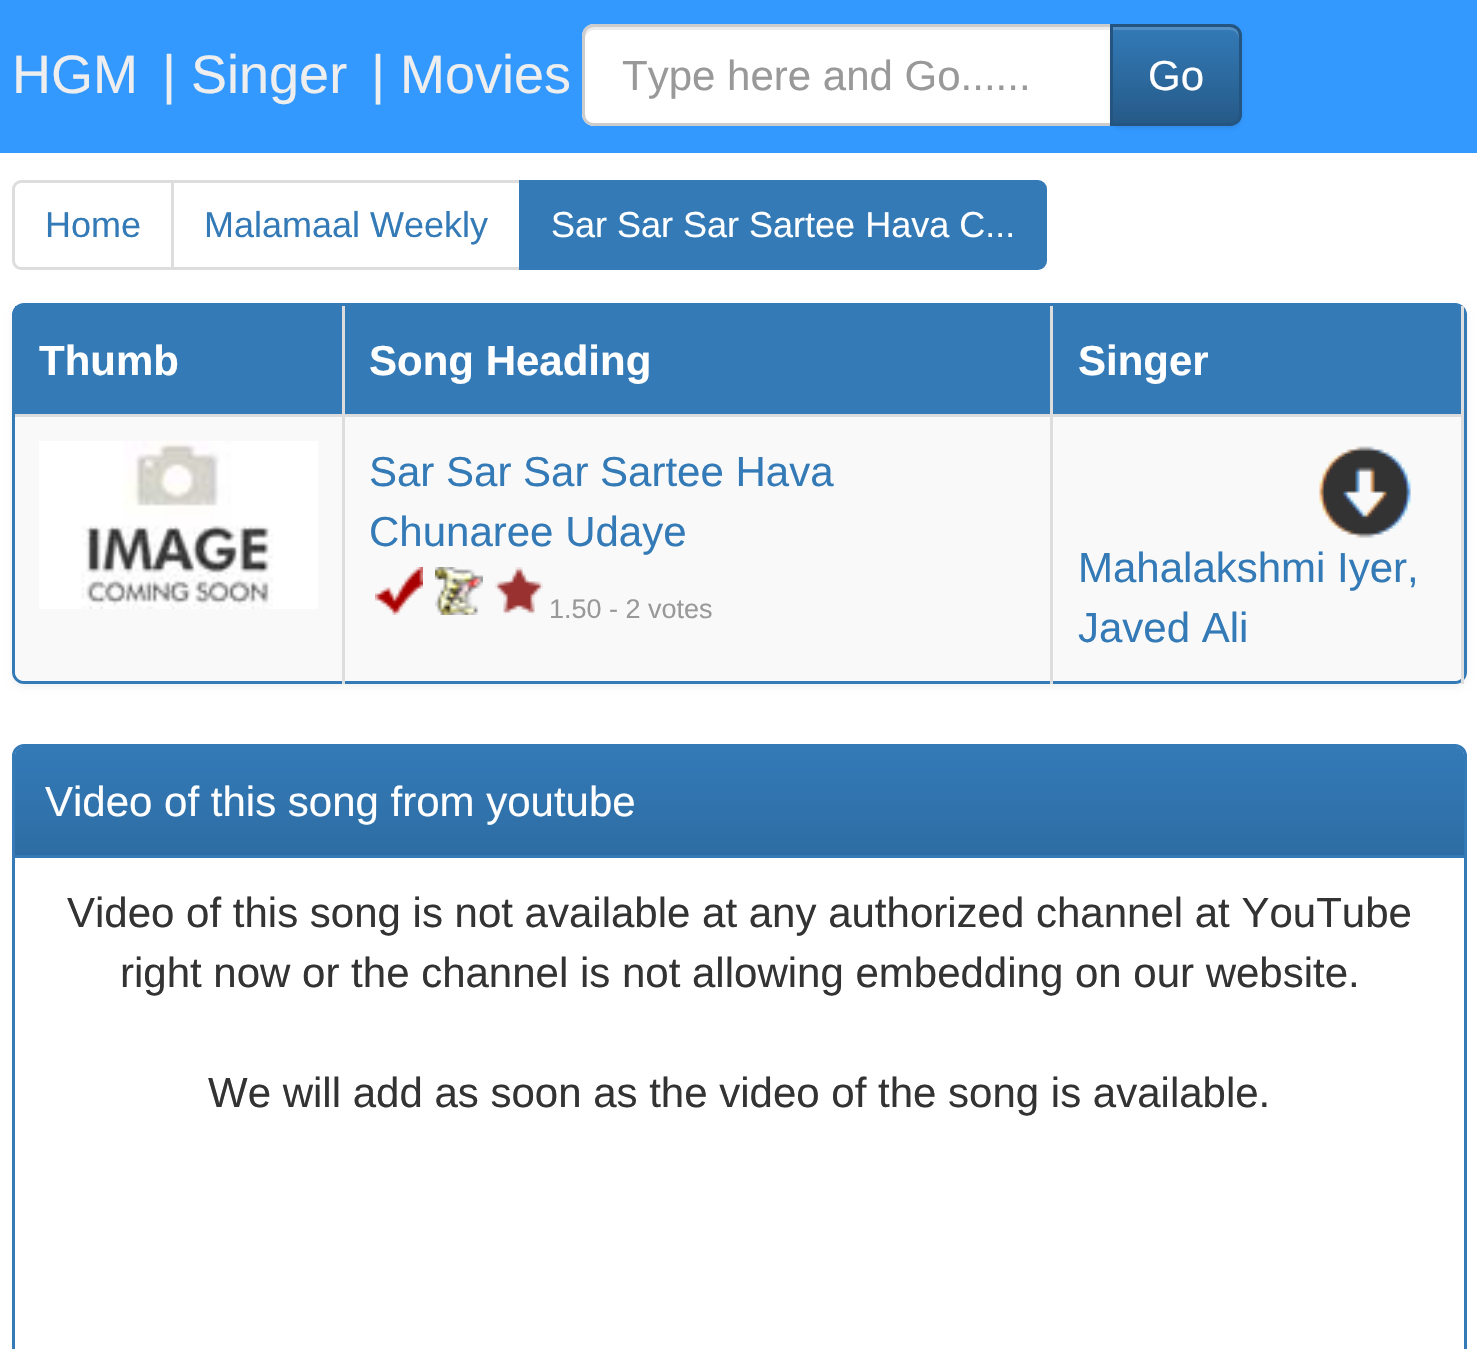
#include "include/core/SkBlurTypes.h"
#include "include/core/SkCanvas.h"
#include "include/core/SkData.h"
#include "include/core/SkFont.h"
#include "include/core/SkFontMgr.h"
#include "include/core/SkImage.h"
#include "include/core/SkMaskFilter.h"
#include "include/core/SkPaint.h"
#include "include/core/SkPathBuilder.h"
#include "include/core/SkTextBlob.h"
#include "include/effects/SkDashPathEffect.h"
#include "include/effects/SkGradientShader.h"
#include "include/utils/SkParsePath.h"

extern sk_sp<SkFontMgr> fontMgr;

static SkFont font(const char* family, int weight, float size, bool italic = false) {
    SkFontStyle style(weight, SkFontStyle::kNormal_Width,
        italic ? SkFontStyle::kItalic_Slant : SkFontStyle::kUpright_Slant);
    SkFont result(fontMgr->matchFamilyStyle(family, style), size);
    result.setSubpixel(true);
    return result;
}

static void drawLabel(SkCanvas* canvas, const char* s, float x, float y, const SkFont& font, SkColor color) {
    SkPaint ink(SkColor4f::FromColor(color));
    ink.setAntiAlias(true);
    canvas->drawString(s, x, y, font, ink);
}

static void fillRect(SkCanvas* canvas, float x, float y, float w, float h, SkColor color) {
    SkPaint ink(SkColor4f::FromColor(color));
    ink.setAntiAlias(true);
    canvas->drawRect(SkRect::MakeXYWH(x, y, w, h), ink);
}

static void drawPhoto(SkCanvas* canvas, const char* path, float x, float y, float w, float h) {
    auto image = SkImages::DeferredFromEncodedData(SkData::MakeFromFileName(path));
    canvas->drawImageRect(image, SkRect::MakeXYWH(x, y, w, h), SkSamplingOptions());
}

static SkPath parsePath(const char* data, bool evenOdd = false) {
    SkPath result = *SkParsePath::FromSVGString(data);
    if (evenOdd) result.setFillType(SkPathFillType::kEvenOdd);
    return result;
}

void draw(SkCanvas* canvas) {
    SkPaint paint;
    paint.setAntiAlias(true);
    canvas->clear(0xFFFFFFFF);
    fillRect(canvas, 0, 0, 1477, 153, 0xFF3399FF);
    SkFont font1 = font("Liberation Sans", 400, 54);
    drawLabel(canvas, "HGM", 12, 93, font1, 0xFFEEEEEE);
    drawLabel(canvas, "| Singer", 162, 93, font1, 0xFFEEEEEE);
    drawLabel(canvas, "| Movies", 371, 93, font1, 0xFFEEEEEE);
    paint.setColor(0xFFFFFFFF);
    canvas->drawPath(parsePath("M594 24H1113V126H594C587.5 126 582 120.5 582 114V36C582 29.5 587.5 24 594 24Z"), paint);
    paint.setColor(0xFFECECEC);
    canvas->drawPath(parsePath("M594 30H1110V27H594C589 27 585 31 585 36V39C585 34 589 30 594 30Z"), paint);
    paint.setStroke(true);
    paint.setStrokeWidth(3);
    paint.setColor(0xFFCCCCCC);
    canvas->drawPath(parsePath("M594 25.5H1111.5V124.5H594C588 124.5 583.5 120 583.5 114V36C583.5 30 588 25.5 594 25.5Z"), paint);
    SkFont font2 = font("Liberation Sans", 400, 42);
    drawLabel(canvas, "Type here and Go......", 622, 90, font2, 0xFF999999);
    paint.setStroke(false);
    paint.setColor(0x12000000);
    paint.setMaskFilter(SkMaskFilter::MakeBlur(kNormal_SkBlurStyle, 1.5f));
    canvas->drawRoundRect(SkRect::MakeXYWH(1110, 27, 132, 102), 12, 12, paint);
    paint.setMaskFilter(nullptr);
    canvas->save();
    canvas->clipPath(parsePath("M1110 24H1230C1236.5 24 1242 29.5 1242 36V114C1242 120.5 1236.5 126 1230 126H1110Z"), true);
    {
        const SkColor colors[] = {0xFF337AB7, 0xFF265A88};
        const float stops[] = {0, 1};
        const SkPoint ends[] = {{1176, 27}, {1176, 123}};
        paint.setShader(SkGradientShader::MakeLinear(ends, colors, stops, 2, SkTileMode::kClamp));
        paint.setAlpha(255);
    }
    canvas->drawRect(SkRect::MakeXYWH(1113, 27, 129, 96), paint);
    canvas->restore();
    paint.setShader(nullptr);
    paint.setColor(0x26FFFFFF);
    canvas->drawPath(parsePath("M1113 30H1230C1235 30 1239 34 1239 39V36C1239 31 1235 27 1230 27H1113Z"), paint);
    paint.setStroke(true);
    paint.setColor(0xFF245580);
    canvas->drawPath(parsePath("M1111.5 25.5H1230C1236 25.5 1240.5 30 1240.5 36V114C1240.5 120 1236 124.5 1230 124.5H1111.5Z"), paint);
    drawLabel(canvas, "Go", 1148, 90, font2, 0xFFFFFFFF);
    paint.setColor(0xFFDDDDDD);
    canvas->drawPath(parsePath("M21 181.5H172.5V268.5H21C17 268.5 13.5 265 13.5 261V189C13.5 185 17 181.5 21 181.5Z"), paint);
    SkFont font3 = font("Liberation Sans", 400, 36);
    drawLabel(canvas, "Home", 45, 237, font3, 0xFF337AB7);
    canvas->drawRect(SkRect::MakeXYWH(172.5f, 181.5f, 348, 87), paint);
    drawLabel(canvas, "Malamaal Weekly", 204, 237, font3, 0xFF337AB7);
    paint.setStroke(false);
    paint.setColor(0xFF337AB7);
    canvas->drawPath(parsePath("M520.5 181.5H1038C1042 181.5 1045.5 185 1045.5 189V261C1045.5 265 1042 268.5 1038 268.5H520.5Z"), paint);
    paint.setStroke(true);
    canvas->drawPath(parsePath("M520.5 181.5H1038C1042 181.5 1045.5 185 1045.5 189V261C1045.5 265 1042 268.5 1038 268.5H520.5Z"), paint);
    drawLabel(canvas, "Sar Sar Sar Sartee Hava C...", 551, 237, font3, 0xFFFFFFFF);
    paint.setStroke(false);
    paint.setColor(0x0D000000);
    paint.setMaskFilter(SkMaskFilter::MakeBlur(kNormal_SkBlurStyle, 3));
    canvas->drawRoundRect(SkRect::MakeXYWH(12, 306, 1455, 381), 12, 12, paint);
    paint.setMaskFilter(nullptr);
    paint.setStroke(true);
    paint.setColor(0xFF337AB7);
    canvas->drawRoundRect(SkRect::MakeXYWH(13.5f, 304.5f, 1452, 378), 10.5f, 10.5f, paint);
    fillRect(canvas, 15, 306, 1446, 108, 0xFF337AB7);
    SkFont font4 = font("Liberation Sans", 700, 42);
    drawLabel(canvas, "Thumb", 39, 375, font4, 0xFFFFFFFF);
    fillRect(canvas, 1050, 414, 414, 3, 0xFFDDDDDD);
    paint.setStroke(false);
    paint.setColor(0xFFF9F9F9);
    canvas->drawPath(parsePath("M15 417H1464V672C1464 677 1460 681 1455 681H24C19 681 15 677 15 672Z"), paint);
    fillRect(canvas, 1050, 414, 3, 270, 0xFFDDDDDD);
    fillRect(canvas, 342, 414, 711, 3, 0xFFDDDDDD);
    fillRect(canvas, 342, 414, 3, 270, 0xFFDDDDDD);
    fillRect(canvas, 15, 414, 330, 3, 0xFFDDDDDD);
    fillRect(canvas, 342, 306, 3, 111, 0xFFDDDDDD);
    drawLabel(canvas, "Song Heading", 369, 375, font4, 0xFFFFFFFF);
    fillRect(canvas, 1050, 306, 3, 111, 0xFFDDDDDD);
    drawLabel(canvas, "Singer", 1078, 375, font4, 0xFFFFFFFF);
    drawPhoto(canvas, "assets/img1.png", 39, 441, 279, 168);
    drawLabel(canvas, "Sar Sar Sar Sartee Hava", 369, 486, font2, 0xFF337AB7);
    drawLabel(canvas, "Chunaree Udaye", 369, 546, font2, 0xFF337AB7);
    drawPhoto(canvas, "assets/img2.png", 375, 567, 48, 48);
    drawPhoto(canvas, "assets/img3.png", 435, 567, 48, 48);
    drawPhoto(canvas, "assets/img4.png", 495, 567, 48, 48);
    SkFont font5 = font("Liberation Sans", 400, 27);
    drawLabel(canvas, "1.50 - 2 votes", 549, 618, font5, 0xFF999999);
    fillRect(canvas, 1461, 306, 3, 378, 0xFFDDDDDD);
    drawPhoto(canvas, "assets/img5.png", 1319, 446, 92, 92);
    drawLabel(canvas, "Mahalakshmi Iyer,", 1078, 582, font2, 0xFF337AB7);
    drawLabel(canvas, "Javed Ali", 1078, 642, font2, 0xFF337AB7);
    paint.setStroke(true);
    paint.setColor(0xFF337AB7);
    canvas->drawRoundRect(SkRect::MakeXYWH(13.5f, 745.5f, 1452, 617), 10.5f, 10.5f, paint);
    paint.setStroke(false);
    canvas->drawPath(parsePath("M24 747H1455C1460 747 1464 751 1464 756V858H15V756C15 751 19 747 24 747Z"), paint);
    {
        const SkColor colors[] = {0xFF337AB7, 0xFF2E6DA4};
        const float stops[] = {0, 1};
        const SkPoint ends[] = {{740, 747}, {740, 855}};
        paint.setShader(SkGradientShader::MakeLinear(ends, colors, stops, 2, SkTileMode::kClamp));
        paint.setAlpha(255);
    }
    canvas->drawPath(parsePath("M24 747H1455C1460 747 1464 751 1464 756V855H15V756C15 751 19 747 24 747Z"), paint);
    drawLabel(canvas, "Video of this song from youtube", 45, 816, font2, 0xFFFFFFFF);
    drawLabel(canvas, "Video of this song is not available at any authorized channel at YouTube", 67, 927, font2, 0xFF333333);
    drawLabel(canvas, "right now or the channel is not allowing embedding on our website.", 120, 987, font2, 0xFF333333);
    drawLabel(canvas, "We will add as soon as the video of the song is available.", 208, 1107, font2, 0xFF333333);
}
